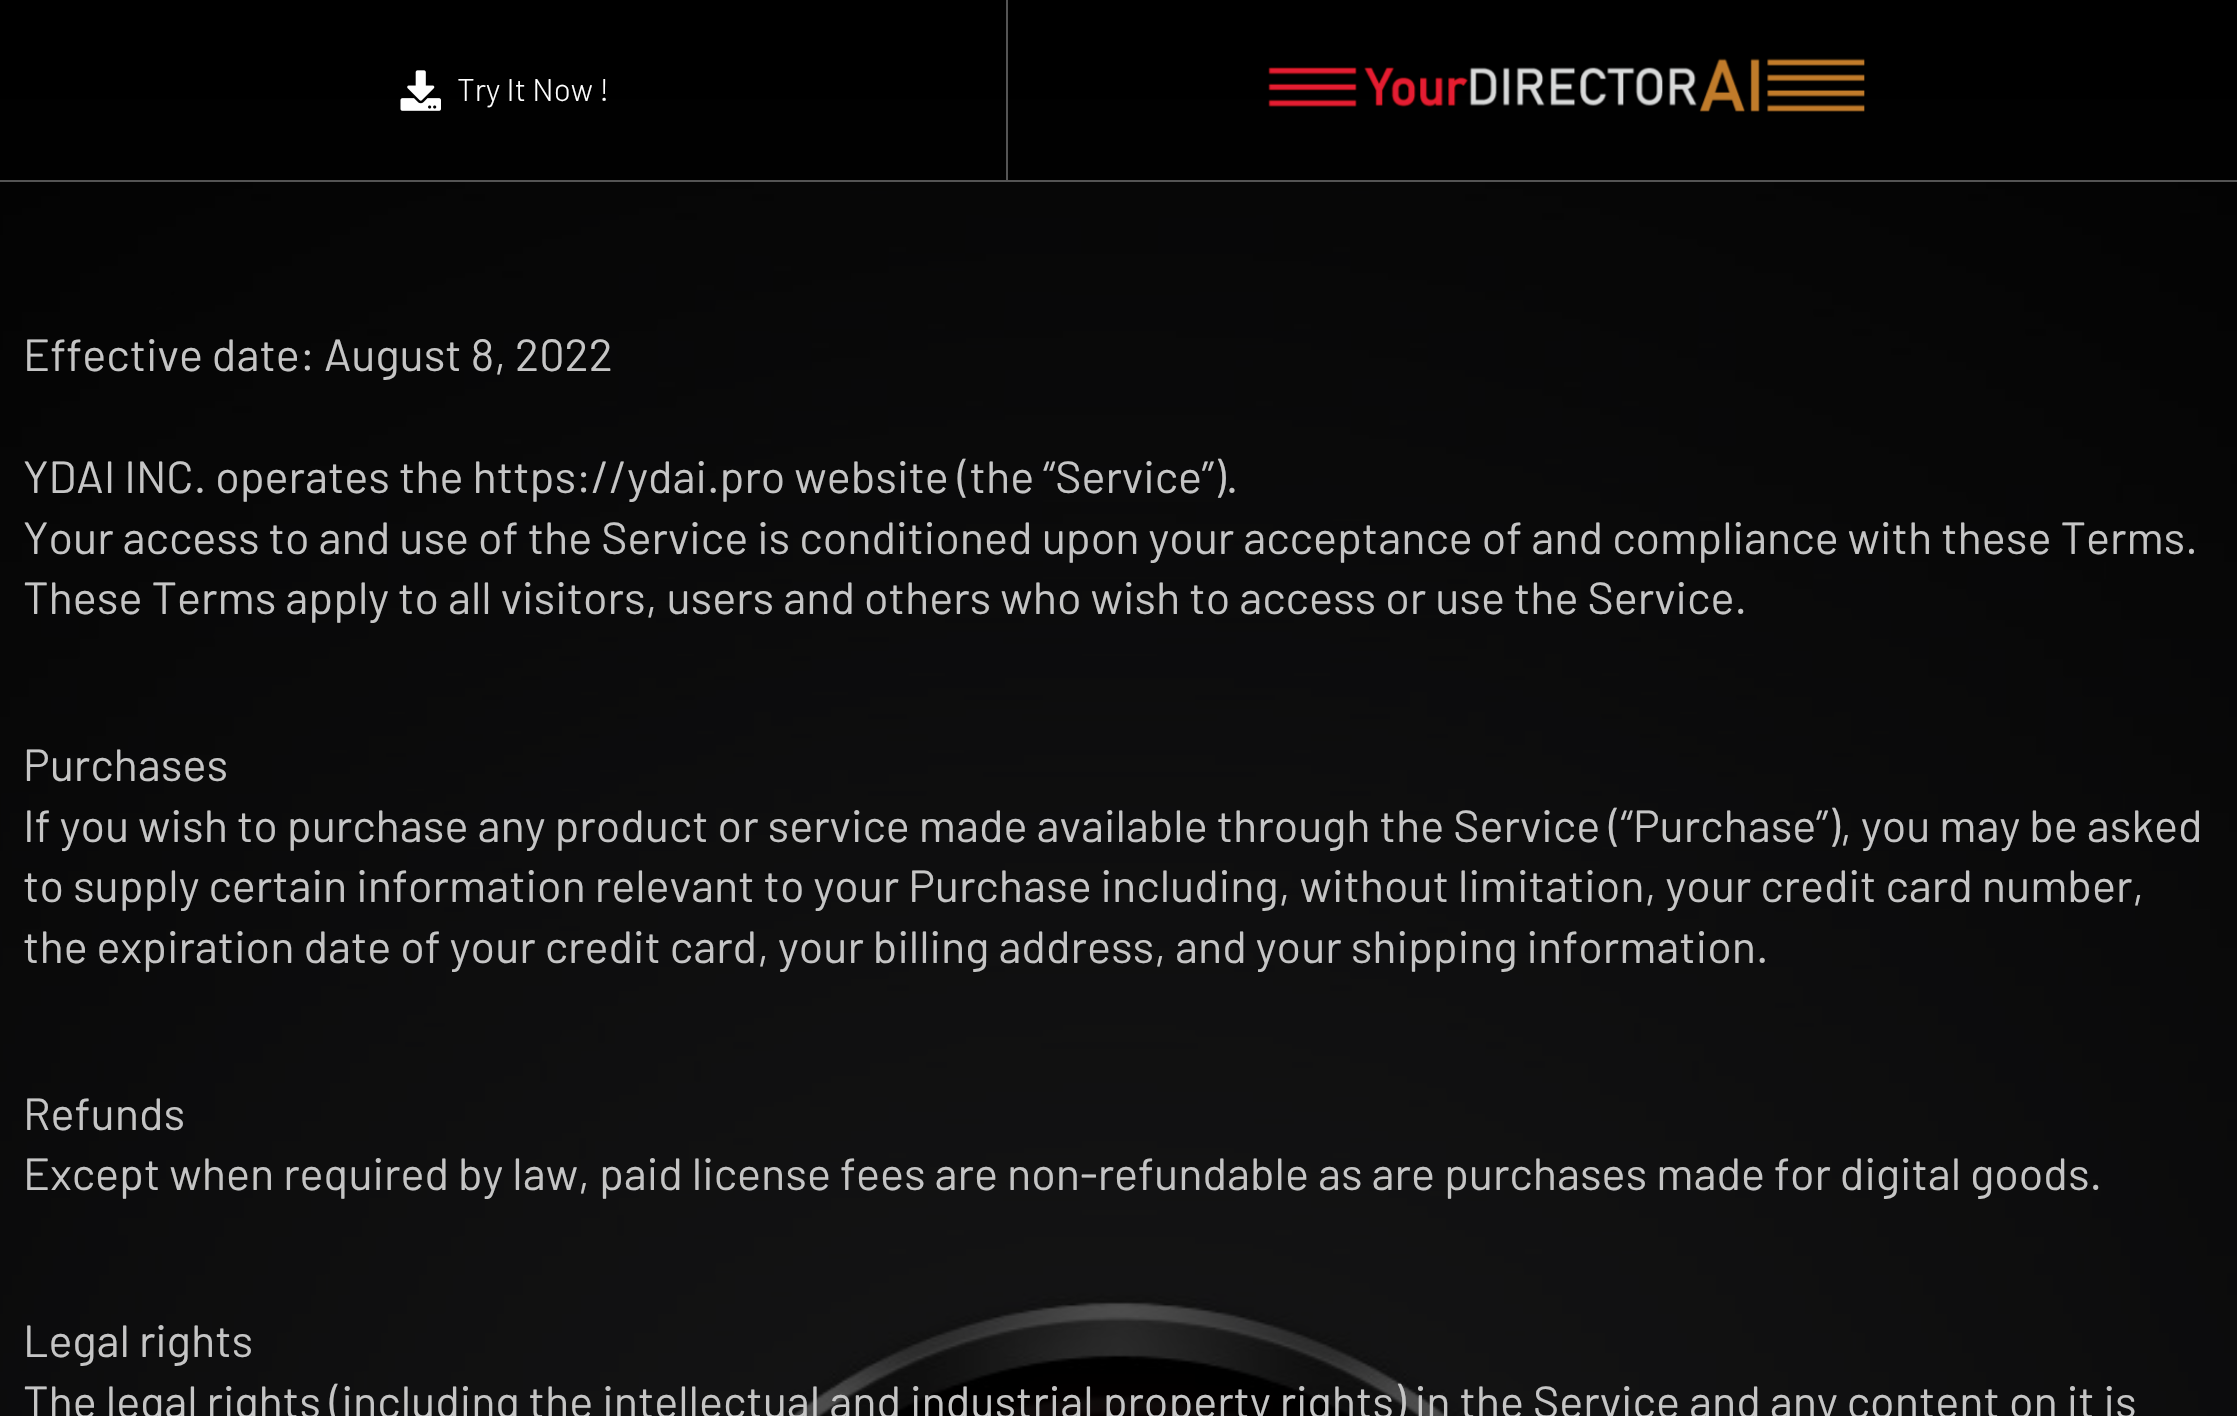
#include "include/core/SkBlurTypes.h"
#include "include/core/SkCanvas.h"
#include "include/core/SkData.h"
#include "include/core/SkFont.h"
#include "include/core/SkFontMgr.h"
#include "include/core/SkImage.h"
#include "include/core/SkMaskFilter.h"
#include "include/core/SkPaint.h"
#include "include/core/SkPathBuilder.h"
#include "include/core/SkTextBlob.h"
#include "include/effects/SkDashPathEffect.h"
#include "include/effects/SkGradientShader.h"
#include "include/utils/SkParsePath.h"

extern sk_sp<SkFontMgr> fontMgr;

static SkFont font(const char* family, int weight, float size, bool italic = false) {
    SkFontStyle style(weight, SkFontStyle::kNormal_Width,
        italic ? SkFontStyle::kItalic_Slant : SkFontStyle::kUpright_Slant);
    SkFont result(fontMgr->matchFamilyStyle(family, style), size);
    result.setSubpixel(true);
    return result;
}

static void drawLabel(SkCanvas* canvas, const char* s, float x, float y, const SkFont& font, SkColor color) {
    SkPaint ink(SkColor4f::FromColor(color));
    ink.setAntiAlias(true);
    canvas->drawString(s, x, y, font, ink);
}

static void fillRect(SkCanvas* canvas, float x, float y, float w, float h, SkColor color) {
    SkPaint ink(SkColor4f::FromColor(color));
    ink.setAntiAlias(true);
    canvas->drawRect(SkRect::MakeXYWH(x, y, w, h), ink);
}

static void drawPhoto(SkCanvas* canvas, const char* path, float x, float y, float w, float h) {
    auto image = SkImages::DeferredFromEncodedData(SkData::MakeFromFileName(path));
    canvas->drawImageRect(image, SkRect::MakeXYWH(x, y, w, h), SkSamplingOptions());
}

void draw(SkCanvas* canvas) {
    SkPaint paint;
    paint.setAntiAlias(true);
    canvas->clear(0xFF000000);
    drawPhoto(canvas, "assets/img3.png", 0, 99, 2237, 1317);
    fillRect(canvas, 0, 180, 2237, 2, 0xFF545454);
    fillRect(canvas, 0, 99, 2237, 81, 0xFC000000);
    fillRect(canvas, 1006, 0, 2, 180, 0xFF545454);
    drawPhoto(canvas, "assets/img1.png", 400, 70, 41, 41);
    SkFont font1 = font("Barlow", 300, 31.5f);
    drawLabel(canvas, "Try It Now !", 457, 101, font1, 0xFFFFFFFF);
    drawPhoto(canvas, "assets/img2.png", 1268, 58, 597, 54);
    SkFont font2 = font("Barlow", 400, 45);
    drawLabel(canvas, "Effective date: August 8, 2022", 23, 371, font2, 0xFFC5C5C5);
    drawLabel(canvas, "YDAI INC. operates the https://ydai.pro website (the “Service”).", 23, 493, font2, 0xFFC5C5C5);
    drawLabel(canvas, "Your access to and use of the Service is conditioned upon your acceptance of and compliance with these Terms.", 23, 554, font2, 0xFFC5C5C5);
    drawLabel(canvas, "These Terms apply to all visitors, users and others who wish to access or use the Service.", 23, 614, font2, 0xFFC5C5C5);
    drawLabel(canvas, "Purchases", 23, 781, font2, 0xFFC5C5C5);
    drawLabel(canvas, "If you wish to purchase any product or service made available through the Service (“Purchase”), you may be asked", 23, 842, font2, 0xFFC5C5C5);
    drawLabel(canvas, "to supply certain information relevant to your Purchase including, without limitation, your credit card number,", 23, 902, font2, 0xFFC5C5C5);
    drawLabel(canvas, "the expiration date of your credit card, your billing address, and your shipping information.", 23, 963, font2, 0xFFC5C5C5);
    drawLabel(canvas, "Refunds", 23, 1130, font2, 0xFFC5C5C5);
    drawLabel(canvas, "Except when required by law, paid license fees are non-refundable as are purchases made for digital goods.", 23, 1190, font2, 0xFFC5C5C5);
    drawLabel(canvas, "Legal rights", 23, 1357, font2, 0xFFC5C5C5);
    drawLabel(canvas, "The legal rights (including the intellectual and industrial property rights) in the Service and any content on it is", 23, 1418, font2, 0xFFC5C5C5);
}
